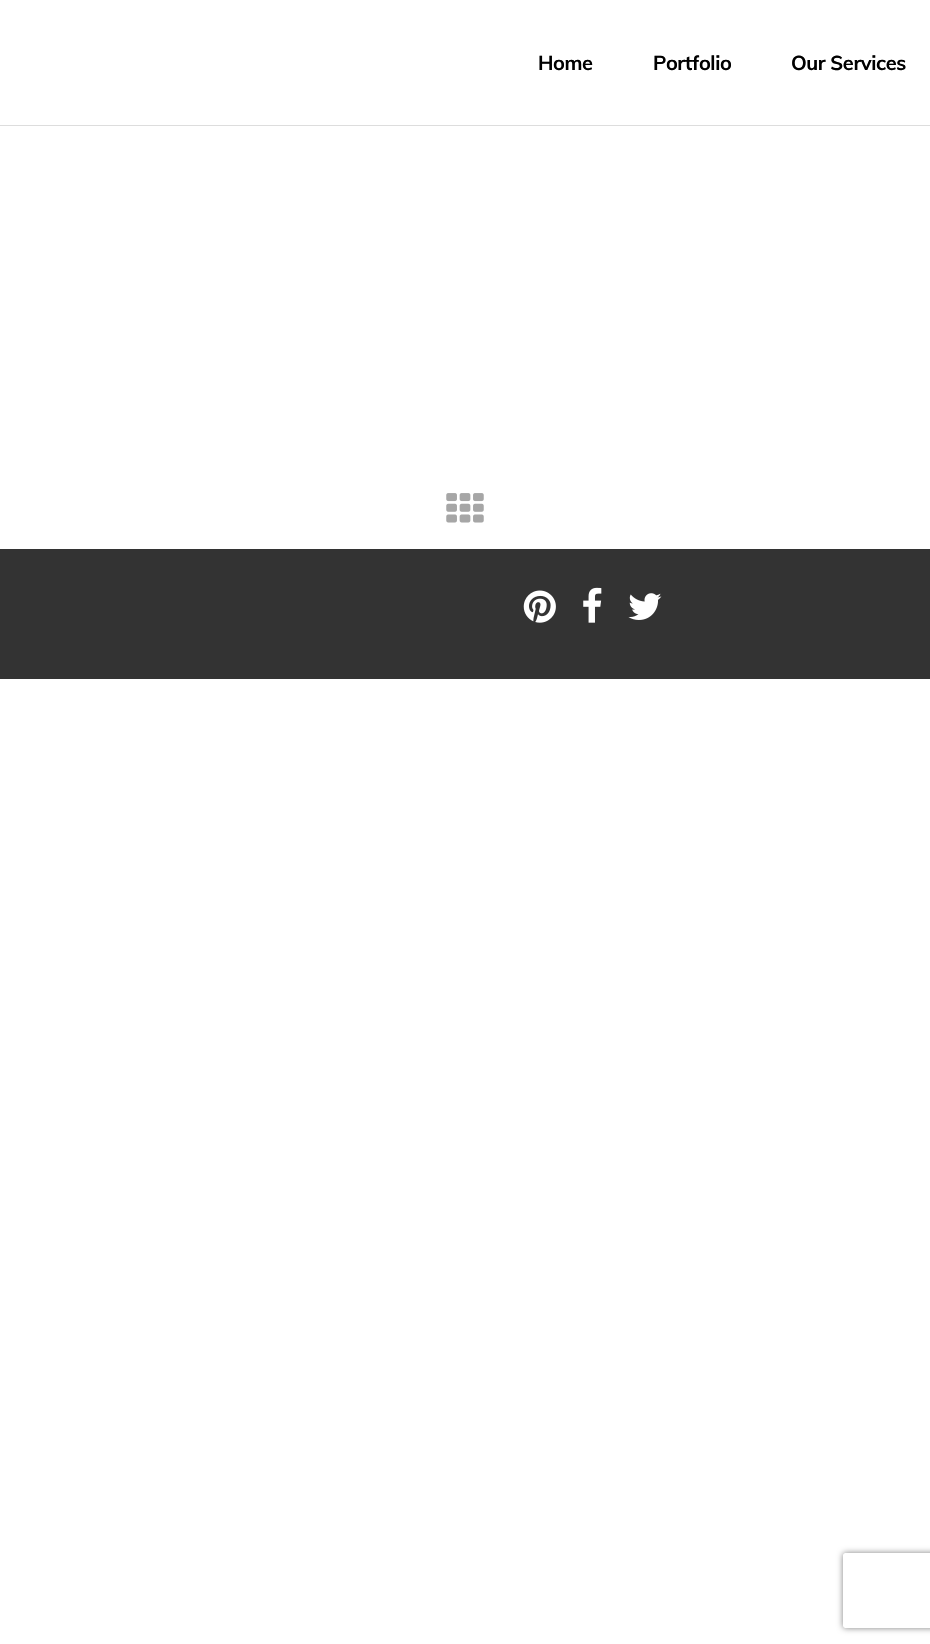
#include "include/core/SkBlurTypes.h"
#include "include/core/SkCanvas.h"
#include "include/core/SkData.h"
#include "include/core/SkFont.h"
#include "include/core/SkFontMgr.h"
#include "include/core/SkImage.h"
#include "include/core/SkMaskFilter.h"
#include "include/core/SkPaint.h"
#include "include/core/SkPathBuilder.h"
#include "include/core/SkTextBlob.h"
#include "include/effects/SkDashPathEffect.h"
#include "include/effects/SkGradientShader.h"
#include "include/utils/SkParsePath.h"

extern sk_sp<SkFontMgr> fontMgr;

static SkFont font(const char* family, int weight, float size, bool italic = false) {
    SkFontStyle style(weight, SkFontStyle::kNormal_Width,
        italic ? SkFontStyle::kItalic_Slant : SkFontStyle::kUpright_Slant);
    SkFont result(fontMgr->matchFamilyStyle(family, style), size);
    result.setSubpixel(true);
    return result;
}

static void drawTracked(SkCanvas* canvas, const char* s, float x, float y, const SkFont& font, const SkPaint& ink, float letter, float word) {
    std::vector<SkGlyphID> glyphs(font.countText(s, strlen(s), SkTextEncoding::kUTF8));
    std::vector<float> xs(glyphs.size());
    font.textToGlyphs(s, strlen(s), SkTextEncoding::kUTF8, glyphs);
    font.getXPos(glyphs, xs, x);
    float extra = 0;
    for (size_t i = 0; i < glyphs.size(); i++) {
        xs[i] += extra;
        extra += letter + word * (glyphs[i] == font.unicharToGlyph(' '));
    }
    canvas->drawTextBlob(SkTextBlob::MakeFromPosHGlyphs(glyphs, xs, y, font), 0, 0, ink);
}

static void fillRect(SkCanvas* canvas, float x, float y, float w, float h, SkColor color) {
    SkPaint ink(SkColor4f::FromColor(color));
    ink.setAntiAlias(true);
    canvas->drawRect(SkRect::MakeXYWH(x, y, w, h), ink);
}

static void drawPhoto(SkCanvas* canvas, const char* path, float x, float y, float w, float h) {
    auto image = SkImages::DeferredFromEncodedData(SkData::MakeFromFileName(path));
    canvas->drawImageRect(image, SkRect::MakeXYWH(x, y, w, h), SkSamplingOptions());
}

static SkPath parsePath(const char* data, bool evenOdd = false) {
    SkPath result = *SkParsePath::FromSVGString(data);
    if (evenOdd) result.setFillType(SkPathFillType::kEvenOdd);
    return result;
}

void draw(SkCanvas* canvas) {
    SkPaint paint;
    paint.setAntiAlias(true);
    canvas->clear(0xFFFFFFFF);
    fillRect(canvas, 0, 125, 930, 1, 0xFFDDDDDD);
    SkFont font1 = font("Muli", 700, 20);
    paint.setColor(0xFF000000);
    drawTracked(canvas, "Home", 538, 70, font1, paint, -0.4f, 0);
    drawTracked(canvas, "Portfolio", 653, 70, font1, paint, -0.4f, 0);
    drawTracked(canvas, "Our Services", 791, 70, font1, paint, -0.4f, 0);
    drawPhoto(canvas, "assets/img1.png", 446, 493, 38, 30);
    fillRect(canvas, 0, 549, 930, 130, 0xFF333333);
    drawPhoto(canvas, "assets/img2.png", 523, 590, 33, 33);
    drawPhoto(canvas, "assets/img3.png", 583, 587, 19, 36);
    drawPhoto(canvas, "assets/img4.png", 628, 593, 34, 27);
    canvas->save();
    canvas->clipPath(parsePath("M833 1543H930V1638H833ZM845.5 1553H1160.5C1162 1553 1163 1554 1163 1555.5V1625.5C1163 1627 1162 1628 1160.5 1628H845.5C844 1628 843 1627 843 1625.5V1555.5C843 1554 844 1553 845.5 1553Z", true), true);
    paint.setColor(0xFF808080);
    paint.setMaskFilter(SkMaskFilter::MakeBlur(kNormal_SkBlurStyle, 3));
    canvas->drawRoundRect(SkRect::MakeXYWH(843, 1553, 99, 75), 2.5f, 2.5f, paint);
    paint.setMaskFilter(nullptr);
    canvas->restore();
}
